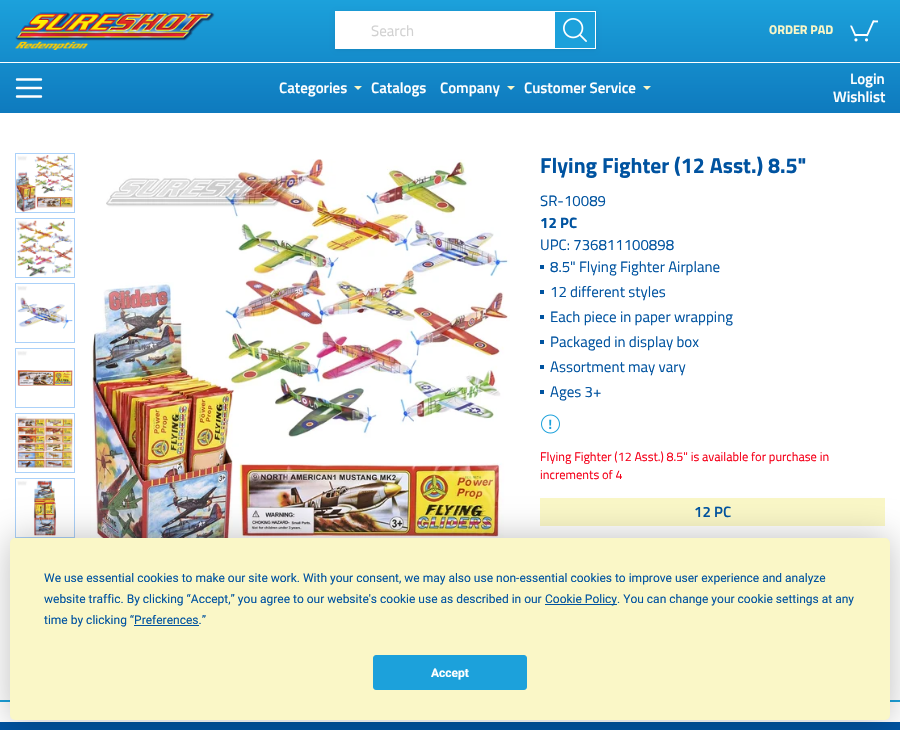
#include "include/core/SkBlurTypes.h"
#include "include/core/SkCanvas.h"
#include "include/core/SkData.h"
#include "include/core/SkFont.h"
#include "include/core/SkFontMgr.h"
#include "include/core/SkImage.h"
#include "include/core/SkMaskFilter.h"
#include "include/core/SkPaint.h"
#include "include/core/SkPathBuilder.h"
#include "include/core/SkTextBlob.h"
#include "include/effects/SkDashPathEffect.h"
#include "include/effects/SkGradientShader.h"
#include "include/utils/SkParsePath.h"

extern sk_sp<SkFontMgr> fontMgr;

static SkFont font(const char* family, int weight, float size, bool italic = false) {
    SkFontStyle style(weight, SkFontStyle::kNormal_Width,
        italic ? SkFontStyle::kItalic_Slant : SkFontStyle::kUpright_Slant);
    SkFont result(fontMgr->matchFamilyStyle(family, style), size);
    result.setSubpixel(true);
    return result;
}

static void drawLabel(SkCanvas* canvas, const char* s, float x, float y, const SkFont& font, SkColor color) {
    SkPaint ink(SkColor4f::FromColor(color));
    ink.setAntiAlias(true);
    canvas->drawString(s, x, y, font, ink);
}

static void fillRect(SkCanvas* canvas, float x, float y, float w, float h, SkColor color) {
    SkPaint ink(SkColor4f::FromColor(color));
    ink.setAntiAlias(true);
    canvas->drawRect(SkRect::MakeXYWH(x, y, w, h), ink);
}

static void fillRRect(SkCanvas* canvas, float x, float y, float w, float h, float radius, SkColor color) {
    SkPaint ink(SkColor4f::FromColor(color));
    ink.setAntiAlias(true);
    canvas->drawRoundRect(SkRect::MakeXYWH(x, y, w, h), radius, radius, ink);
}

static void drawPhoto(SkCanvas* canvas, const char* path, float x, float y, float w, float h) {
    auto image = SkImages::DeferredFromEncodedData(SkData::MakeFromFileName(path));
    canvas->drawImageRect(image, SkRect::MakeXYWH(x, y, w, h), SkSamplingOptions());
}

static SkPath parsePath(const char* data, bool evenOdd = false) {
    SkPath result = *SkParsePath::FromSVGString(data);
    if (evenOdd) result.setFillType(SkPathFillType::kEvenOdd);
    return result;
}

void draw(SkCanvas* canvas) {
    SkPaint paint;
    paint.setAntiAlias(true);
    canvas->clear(0xFFFFFFFF);
    {
        const SkColor colors[] = {0xFF1CA1DB, 0xFF0E7ABE};
        const float stops[] = {0, 1};
        const SkPoint ends[] = {{450, 0}, {450, 113}};
        paint.setShader(SkGradientShader::MakeLinear(ends, colors, stops, 2, SkTileMode::kClamp));
        paint.setAlpha(255);
    }
    canvas->drawRect(SkRect::MakeXYWH(0, 0, 900, 113), paint);
    fillRect(canvas, 0, 62, 900, 1, 0xFFFFFFFF);
    paint.setStroke(true);
    paint.setStrokeWidth(2.4f);
    paint.setStrokeCap(SkPaint::kRound_Cap);
    paint.setShader(nullptr);
    paint.setColor(0xFFFFFFFF);
    canvas->drawPath(parsePath("M17 79.5H41M17 88H41M17 96.5H41"), paint);
    paint.setStroke(false);
    paint.setColor(0x14000000);
    paint.setMaskFilter(SkMaskFilter::MakeBlur(kNormal_SkBlurStyle, 2));
    canvas->drawRect(SkRect::MakeXYWH(335, 12, 261, 38), paint);
    paint.setMaskFilter(nullptr);
    fillRect(canvas, 335, 11, 219, 38, 0xFFFFFFFF);
    SkFont font1 = font("Titillium Web", 400, 15);
    drawLabel(canvas, "Search", 371, 36, font1, 0xFFD1D1D1);
    paint.setColor(0xFF1CA1DB);
    canvas->drawRect(SkRect::MakeXYWH(554.5f, 11.5f, 41, 37), paint);
    paint.setStroke(true);
    paint.setStrokeWidth(1);
    paint.setStrokeCap(SkPaint::kButt_Cap);
    paint.setColor(0xFFFFFFFF);
    canvas->drawRect(SkRect::MakeXYWH(554.5f, 11.5f, 41, 37), paint);
    drawPhoto(canvas, "assets/img1.png", 563, 18, 24, 24);
    SkFont font2 = font("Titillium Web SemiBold", 600, 15);
    drawLabel(canvas, "Categories", 279, 93, font2, 0xFFFFFFFF);
    paint.setStroke(false);
    paint.setColor(0xFFFAF7C7);
    canvas->drawPath(parsePath("M354 86H362L358 90Z"), paint);
    drawLabel(canvas, "Catalogs", 371, 93, font2, 0xFFFFFFFF);
    drawLabel(canvas, "Company", 440, 93, font2, 0xFFFFFFFF);
    canvas->drawPath(parsePath("M507 86H515L511 90Z"), paint);
    drawLabel(canvas, "Customer Service", 524, 93, font2, 0xFFFFFFFF);
    canvas->drawPath(parsePath("M643 86H651L647 90Z"), paint);
    drawLabel(canvas, "Login", 850, 84, font2, 0xFFFFFFFF);
    drawLabel(canvas, "Wishlist", 833, 102, font2, 0xFFFFFFFF);
    drawPhoto(canvas, "assets/img2.png", 15, 12, 200, 38);
    SkFont font3 = font("Titillium Web", 700, 12.5f);
    drawLabel(canvas, "ORDER PAD", 769, 34, font3, 0xFFFAF7C7);
    drawPhoto(canvas, "assets/img3.png", 850, 20, 28, 22);
    fillRect(canvas, 0, 700, 900, 2, 0xFF1CA1DB);
    paint.setStroke(true);
    paint.setColor(0xFFABD1F9);
    canvas->drawRect(SkRect::MakeXYWH(15.5f, 153.5f, 59, 59), paint);
    drawPhoto(canvas, "assets/img4.png", 16, 155, 58, 57);
    canvas->drawRect(SkRect::MakeXYWH(15.5f, 218.5f, 59, 59), paint);
    drawPhoto(canvas, "assets/img5.png", 16, 220, 58, 57);
    canvas->drawRect(SkRect::MakeXYWH(15.5f, 283.5f, 59, 59), paint);
    drawPhoto(canvas, "assets/img6.png", 17, 286, 56, 43);
    canvas->drawRect(SkRect::MakeXYWH(15.5f, 348.5f, 59, 59), paint);
    drawPhoto(canvas, "assets/img7.png", 17, 351, 56, 35);
    canvas->drawRect(SkRect::MakeXYWH(15.5f, 413.5f, 59, 59), paint);
    drawPhoto(canvas, "assets/img8.png", 17, 416, 56, 53);
    canvas->drawRect(SkRect::MakeXYWH(15.5f, 478.5f, 59, 59), paint);
    drawPhoto(canvas, "assets/img9.png", 17, 480, 40, 56);
    drawPhoto(canvas, "assets/img10.png", 90, 159, 420, 379);
    SkFont font4 = font("Titillium Web", 700, 21.6f);
    drawLabel(canvas, "Flying Fighter (12 Asst.) 8.5\"", 540, 173, font4, 0xFF0053A0);
    drawLabel(canvas, "SR-10089", 540, 206, font1, 0xFF0053A0);
    SkFont font5 = font("Titillium Web", 700, 15);
    drawLabel(canvas, "12 PC", 540, 228, font5, 0xFF0053A0);
    drawLabel(canvas, "UPC: 736811100898", 540, 250, font1, 0xFF0053A0);
    fillRect(canvas, 540, 265, 4, 4, 0xFF0053A0);
    drawLabel(canvas, "8.5\" Flying Fighter Airplane", 550, 272, font1, 0xFF0053A0);
    fillRect(canvas, 540, 290, 4, 4, 0xFF0053A0);
    drawLabel(canvas, "12 different styles", 550, 297, font1, 0xFF0053A0);
    fillRect(canvas, 540, 315, 4, 4, 0xFF0053A0);
    drawLabel(canvas, "Each piece in paper wrapping", 550, 322, font1, 0xFF0053A0);
    fillRect(canvas, 540, 340, 4, 4, 0xFF0053A0);
    drawLabel(canvas, "Packaged in display box", 550, 347, font1, 0xFF0053A0);
    fillRect(canvas, 540, 365, 4, 4, 0xFF0053A0);
    drawLabel(canvas, "Assortment may vary", 550, 372, font1, 0xFF0053A0);
    fillRect(canvas, 540, 390, 4, 4, 0xFF0053A0);
    drawLabel(canvas, "Ages 3+", 550, 397, font1, 0xFF0053A0);
    drawPhoto(canvas, "assets/img11.png", 541, 414, 19, 20);
    SkFont font6 = font("Titillium Web", 400, 12.5f);
    drawLabel(canvas, "Flying Fighter (12 Asst.) 8.5\" is available for purchase in", 540, 461, font6, 0xFFF50019);
    drawLabel(canvas, "increments of 4", 540, 479, font6, 0xFFF50019);
    fillRect(canvas, 540, 498, 345, 28, 0xFFFAF7C7);
    drawLabel(canvas, "12 PC", 694, 517, font2, 0xFF0053A0);
    fillRect(canvas, 0, 722, 900, 8, 0xFF0053A0);
    paint.setStroke(false);
    paint.setColor(0x40000000);
    paint.setMaskFilter(SkMaskFilter::MakeBlur(kNormal_SkBlurStyle, 17.5f));
    canvas->drawRoundRect(SkRect::MakeXYWH(10, 538, 880, 182), 5, 5, paint);
    paint.setMaskFilter(nullptr);
    fillRRect(canvas, 10, 538, 880, 182, 5, 0xFFFAF7C7);
    SkFont font7 = font("Roboto", 400, 12);
    drawLabel(canvas, "We use essential cookies to make our site work. With your consent, we may also use non-essential cookies to improve user experience and analyze", 44, 582, font7, 0xFF0053A0);
    drawLabel(canvas, "website traffic. By clicking “Accept,” you agree to our website's cookie use as described in our", 44, 603, font7, 0xFF0053A0);
    fillRect(canvas, 545, 604, 72, 1, 0xFF0053A0);
    drawLabel(canvas, "Cookie Policy. You can change your cookie settings at any", 545, 603, font7, 0xFF0053A0);
    drawLabel(canvas, "time by clicking “Preferences.”", 44, 624, font7, 0xFF0053A0);
    fillRect(canvas, 134, 625, 65, 1, 0xFF0053A0);
    paint.setColor(0xFF1CA1DB);
    canvas->drawRoundRect(SkRect::MakeXYWH(373.5f, 655.5f, 153, 34), 2.5f, 2.5f, paint);
    paint.setStroke(true);
    canvas->drawRoundRect(SkRect::MakeXYWH(373.5f, 655.5f, 153, 34), 2.5f, 2.5f, paint);
    SkFont font8 = font("Roboto", 700, 12);
    drawLabel(canvas, "Accept", 431, 677, font8, 0xFFFFFFFF);
}
